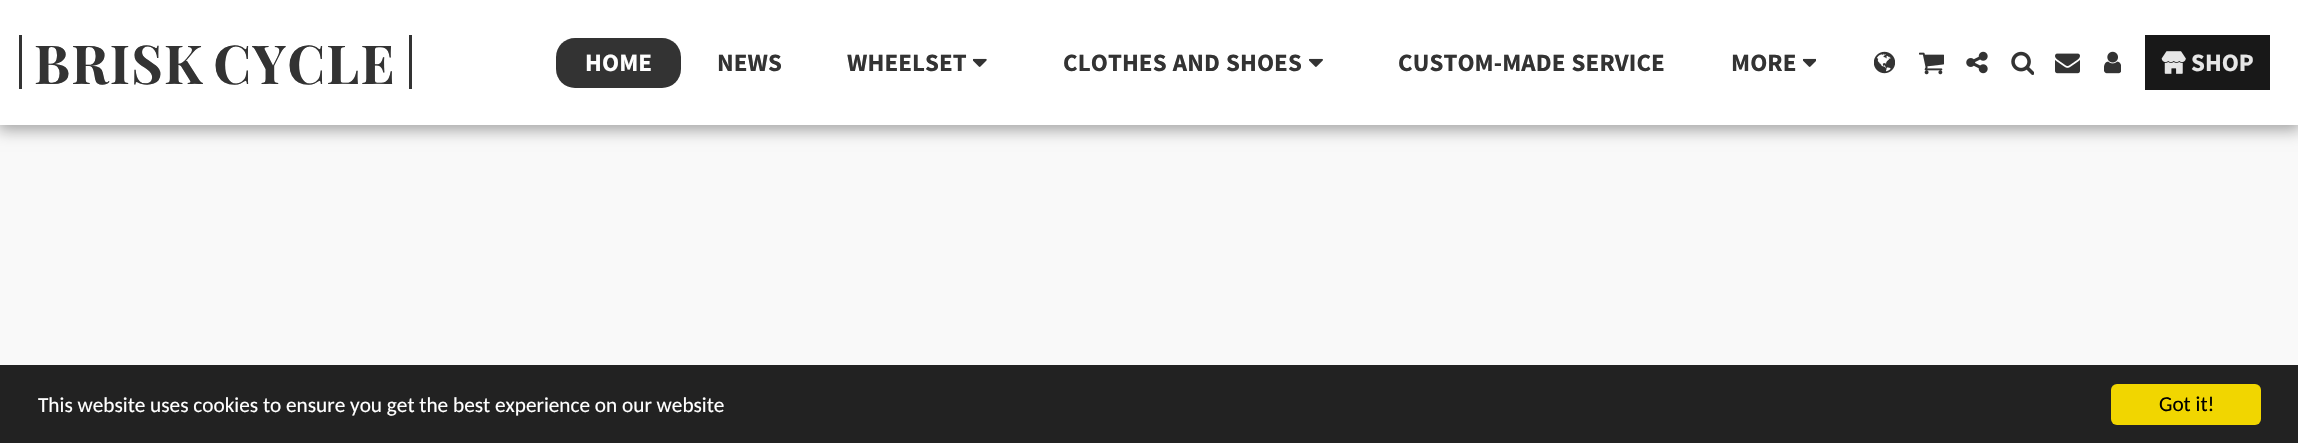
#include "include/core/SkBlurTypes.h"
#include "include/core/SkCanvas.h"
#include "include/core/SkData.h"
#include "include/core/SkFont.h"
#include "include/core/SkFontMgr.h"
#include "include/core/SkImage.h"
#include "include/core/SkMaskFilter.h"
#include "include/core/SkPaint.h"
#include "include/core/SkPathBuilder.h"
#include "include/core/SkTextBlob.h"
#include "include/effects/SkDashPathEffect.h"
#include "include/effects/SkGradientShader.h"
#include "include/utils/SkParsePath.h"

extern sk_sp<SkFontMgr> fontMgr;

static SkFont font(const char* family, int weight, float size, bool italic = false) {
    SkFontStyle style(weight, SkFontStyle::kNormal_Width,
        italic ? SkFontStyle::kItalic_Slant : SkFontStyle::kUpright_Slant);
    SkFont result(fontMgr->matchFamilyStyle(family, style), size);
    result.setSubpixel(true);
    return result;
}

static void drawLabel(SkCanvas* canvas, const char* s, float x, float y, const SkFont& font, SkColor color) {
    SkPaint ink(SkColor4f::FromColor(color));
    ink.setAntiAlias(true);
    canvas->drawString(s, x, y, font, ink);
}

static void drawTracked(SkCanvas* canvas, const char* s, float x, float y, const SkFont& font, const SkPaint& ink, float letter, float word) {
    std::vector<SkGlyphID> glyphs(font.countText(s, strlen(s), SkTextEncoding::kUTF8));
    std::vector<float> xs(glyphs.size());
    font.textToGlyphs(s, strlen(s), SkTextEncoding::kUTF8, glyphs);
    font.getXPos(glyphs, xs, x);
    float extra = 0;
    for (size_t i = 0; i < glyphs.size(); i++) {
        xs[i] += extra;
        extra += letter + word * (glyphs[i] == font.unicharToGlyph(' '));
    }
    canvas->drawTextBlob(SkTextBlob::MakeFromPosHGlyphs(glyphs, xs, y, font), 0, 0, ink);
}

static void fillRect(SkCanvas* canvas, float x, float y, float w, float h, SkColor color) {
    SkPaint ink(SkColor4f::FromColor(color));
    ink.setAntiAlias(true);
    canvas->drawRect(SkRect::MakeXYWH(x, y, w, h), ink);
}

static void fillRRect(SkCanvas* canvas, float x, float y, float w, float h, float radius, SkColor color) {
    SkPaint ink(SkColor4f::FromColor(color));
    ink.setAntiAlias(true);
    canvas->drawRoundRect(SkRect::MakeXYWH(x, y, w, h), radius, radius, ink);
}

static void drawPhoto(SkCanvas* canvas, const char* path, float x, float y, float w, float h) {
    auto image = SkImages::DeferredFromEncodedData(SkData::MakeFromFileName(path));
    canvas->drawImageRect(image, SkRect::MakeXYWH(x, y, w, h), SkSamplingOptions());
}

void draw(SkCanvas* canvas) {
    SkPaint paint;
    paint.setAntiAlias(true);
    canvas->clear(0xFFF9F9F9);
    paint.setColor(0x59000000);
    paint.setMaskFilter(SkMaskFilter::MakeBlur(kNormal_SkBlurStyle, 7.5f));
    canvas->drawRect(SkRect::MakeXYWH(-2, 0, 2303, 130), paint);
    paint.setMaskFilter(nullptr);
    fillRect(canvas, 0, 0, 2298, 125, 0xFFFFFFFF);
    fillRect(canvas, 409, 35, 3, 54, 0xFF333333);
    fillRect(canvas, 19, 35, 3, 54, 0xFF333333);
    SkFont font1 = font("Playfair Display", 700, 53.75f);
    paint.setColor(0xFF333333);
    drawTracked(canvas, "BRISK CYCLE", 34, 84, font1, paint, 1.25f, -4);
    fillRRect(canvas, 556, 38, 125, 50, 19, 0xFF333333);
    SkFont font2 = font("Source Sans Pro", 700, 25);
    paint.setColor(0xFFFFFFFF);
    drawTracked(canvas, "HOME", 585, 71, font2, paint, 0.1f, 0);
    paint.setColor(0xFF333333);
    drawTracked(canvas, "NEWS", 717, 71, font2, paint, 0.1f, 0);
    drawTracked(canvas, "WHEELSET", 847, 71, font2, paint, 0.1f, 0);
    drawPhoto(canvas, "assets/img1.png", 973, 58, 14, 9);
    drawTracked(canvas, "CLOTHES AND SHOES", 1063, 71, font2, paint, 0.1f, 1);
    drawPhoto(canvas, "assets/img2.png", 1309, 58, 14, 9);
    drawTracked(canvas, "CUSTOM-MADE SERVICE", 1398, 71, font2, paint, 0.1f, 1);
    drawTracked(canvas, "MORE", 1731, 71, font2, paint, 0.1f, 0);
    drawPhoto(canvas, "assets/img3.png", 1803, 58, 13, 9);
    drawPhoto(canvas, "assets/img4.png", 1874, 51, 21, 23);
    drawPhoto(canvas, "assets/img5.png", 1919, 52, 25, 23);
    drawPhoto(canvas, "assets/img6.png", 1966, 51, 22, 23);
    drawPhoto(canvas, "assets/img7.png", 2011, 51, 23, 24);
    drawPhoto(canvas, "assets/img8.png", 2055, 53, 25, 21);
    drawPhoto(canvas, "assets/img9.png", 2104, 51, 17, 23);
    fillRect(canvas, 2145, 35, 125, 55, 0xFF181818);
    drawPhoto(canvas, "assets/img10.png", 2161, 51, 25, 23);
    drawLabel(canvas, "SHOP", 2191, 71, font2, 0xFFE6E6E6);
    fillRect(canvas, 0, 365, 2298, 78, 0xFF222222);
    SkFont font3 = font("Carlito", 400, 21.25f);
    drawLabel(canvas, "This website uses cookies to ensure you get the best experience on our website", 38, 412, font3, 0xFFFFFFFF);
    fillRRect(canvas, 2111, 384, 150, 41, 6, 0xFFF1D600);
    drawLabel(canvas, "Got it!", 2159, 411, font3, 0xFF000000);
}
